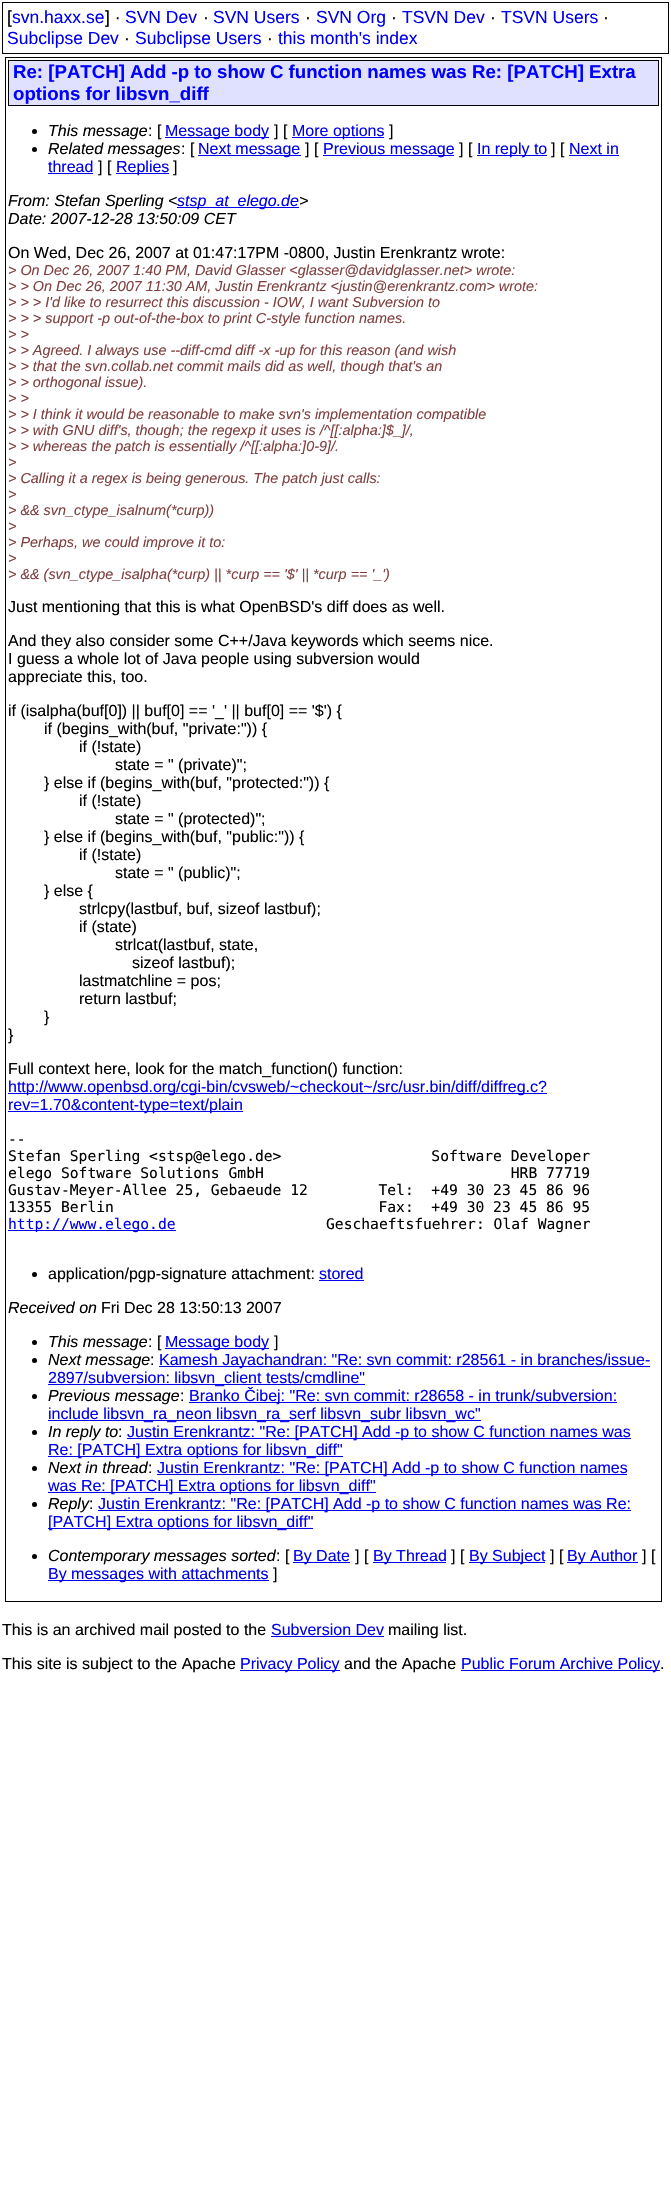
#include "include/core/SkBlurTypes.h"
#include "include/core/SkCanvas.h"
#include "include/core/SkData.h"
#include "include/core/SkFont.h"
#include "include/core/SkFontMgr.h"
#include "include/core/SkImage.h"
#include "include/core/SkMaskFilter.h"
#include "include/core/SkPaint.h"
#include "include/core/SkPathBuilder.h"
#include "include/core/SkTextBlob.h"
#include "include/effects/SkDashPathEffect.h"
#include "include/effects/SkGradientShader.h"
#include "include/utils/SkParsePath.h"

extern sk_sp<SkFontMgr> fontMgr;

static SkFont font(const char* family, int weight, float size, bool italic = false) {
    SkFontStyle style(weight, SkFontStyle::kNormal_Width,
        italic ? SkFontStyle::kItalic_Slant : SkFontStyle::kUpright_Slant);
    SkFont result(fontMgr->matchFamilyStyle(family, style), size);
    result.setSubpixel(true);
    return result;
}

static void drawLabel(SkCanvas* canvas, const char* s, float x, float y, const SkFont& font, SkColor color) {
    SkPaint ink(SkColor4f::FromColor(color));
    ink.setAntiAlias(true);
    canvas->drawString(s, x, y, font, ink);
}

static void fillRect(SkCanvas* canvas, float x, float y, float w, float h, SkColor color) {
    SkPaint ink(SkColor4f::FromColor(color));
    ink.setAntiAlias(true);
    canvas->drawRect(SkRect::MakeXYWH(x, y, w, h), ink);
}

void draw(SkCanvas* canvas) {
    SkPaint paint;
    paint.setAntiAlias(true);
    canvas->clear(0xFFFFFFFF);
    paint.setStroke(true);
    paint.setStrokeWidth(1);
    paint.setColor(0xFF000000);
    canvas->drawRect(SkRect::MakeXYWH(2.5f, 2.5f, 666, 51), paint);
    SkFont font1 = font("Liberation Sans", 400, 17.5f);
    drawLabel(canvas, "[", 7, 23, font1, 0xFF000000);
    drawLabel(canvas, "svn.haxx.se", 12, 23, font1, 0xFF0000EE);
    drawLabel(canvas, "] ·", 105, 23, font1, 0xFF000000);
    drawLabel(canvas, "SVN Dev", 125, 23, font1, 0xFF0000EE);
    drawLabel(canvas, "·", 203, 23, font1, 0xFF000000);
    drawLabel(canvas, "SVN Users", 213, 23, font1, 0xFF0000EE);
    drawLabel(canvas, "·", 305, 23, font1, 0xFF000000);
    drawLabel(canvas, "SVN Org", 316, 23, font1, 0xFF0000EE);
    drawLabel(canvas, "·", 391, 23, font1, 0xFF000000);
    drawLabel(canvas, "TSVN Dev", 402, 23, font1, 0xFF0000EE);
    drawLabel(canvas, "·", 490, 23, font1, 0xFF000000);
    drawLabel(canvas, "TSVN Users", 501, 23, font1, 0xFF0000EE);
    drawLabel(canvas, "·", 603, 23, font1, 0xFF000000);
    drawLabel(canvas, "Subclipse Dev", 7, 44, font1, 0xFF0000EE);
    drawLabel(canvas, "·", 124, 44, font1, 0xFF000000);
    drawLabel(canvas, "Subclipse Users", 135, 44, font1, 0xFF0000EE);
    drawLabel(canvas, "·", 267, 44, font1, 0xFF000000);
    drawLabel(canvas, "this month's index", 278, 44, font1, 0xFF0000EE);
    canvas->drawRect(SkRect::MakeXYWH(5.5f, 57.5f, 656, 1544), paint);
    paint.setStroke(false);
    paint.setColor(0xFFE0E0FF);
    canvas->drawRect(SkRect::MakeXYWH(8.5f, 60.5f, 650, 45), paint);
    paint.setStroke(true);
    paint.setColor(0xFF000000);
    canvas->drawRect(SkRect::MakeXYWH(8.5f, 60.5f, 650, 45), paint);
    SkFont font2 = font("Liberation Sans", 700, 18.65f);
    drawLabel(canvas, "Re: [PATCH] Add -p to show C function names was Re: [PATCH] Extra", 13, 78, font2, 0xFF0000FF);
    drawLabel(canvas, "options for libsvn_diff", 13, 100, font2, 0xFF0000FF);
    paint.setStroke(false);
    canvas->drawCircle(34.5f, 131.5f, 2.5f, paint);
    SkFont font3 = font("Liberation Sans", 400, 16, true);
    drawLabel(canvas, "This message", 48, 136, font3, 0xFF000000);
    SkFont font4 = font("Liberation Sans", 400, 16);
    drawLabel(canvas, ": [", 148, 136, font4, 0xFF000000);
    fillRect(canvas, 165, 137, 104, 1, 0xFF0000EE);
    drawLabel(canvas, "Message body", 165, 136, font4, 0xFF0000EE);
    drawLabel(canvas, "] [", 274, 136, font4, 0xFF000000);
    fillRect(canvas, 292, 137, 92, 1, 0xFF0000EE);
    drawLabel(canvas, "More options", 292, 136, font4, 0xFF0000EE);
    drawLabel(canvas, "]", 389, 136, font4, 0xFF000000);
    canvas->drawCircle(34.5f, 149.5f, 2.5f, paint);
    drawLabel(canvas, "Related messages", 48, 154, font3, 0xFF000000);
    drawLabel(canvas, ": [", 181, 154, font4, 0xFF000000);
    fillRect(canvas, 198, 155, 103, 1, 0xFF0000EE);
    drawLabel(canvas, "Next message", 198, 154, font4, 0xFF0000EE);
    drawLabel(canvas, "] [", 305, 154, font4, 0xFF000000);
    fillRect(canvas, 323, 155, 131, 1, 0xFF0000EE);
    drawLabel(canvas, "Previous message", 323, 154, font4, 0xFF0000EE);
    drawLabel(canvas, "] [", 459, 154, font4, 0xFF000000);
    fillRect(canvas, 477, 155, 70, 1, 0xFF0000EE);
    drawLabel(canvas, "In reply to", 477, 154, font4, 0xFF0000EE);
    drawLabel(canvas, "] [", 551, 154, font4, 0xFF000000);
    drawLabel(canvas, "Next in", 569, 154, font4, 0xFF0000EE);
    fillRect(canvas, 569, 155, 50, 1, 0xFF0000EE);
    drawLabel(canvas, "thread", 48, 172, font4, 0xFF0000EE);
    fillRect(canvas, 48, 173, 45, 1, 0xFF0000EE);
    drawLabel(canvas, "] [", 98, 172, font4, 0xFF000000);
    fillRect(canvas, 116, 173, 53, 1, 0xFF0000EE);
    drawLabel(canvas, "Replies", 116, 172, font4, 0xFF0000EE);
    drawLabel(canvas, "]", 173, 172, font4, 0xFF000000);
    drawLabel(canvas, "From: Stefan Sperling <", 8, 206, font3, 0xFF000000);
    fillRect(canvas, 177, 207, 122, 1, 0xFF0000EE);
    drawLabel(canvas, "stsp_at_elego.de", 177, 206, font3, 0xFF0000EE);
    drawLabel(canvas, ">", 299, 206, font3, 0xFF000000);
    drawLabel(canvas, "Date: 2007-12-28 13:50:09 CET", 8, 224, font3, 0xFF000000);
    drawLabel(canvas, "On Wed, Dec 26, 2007 at 01:47:17PM -0800, Justin Erenkrantz wrote:", 8, 258, font4, 0xFF000000);
    SkFont font5 = font("Liberation Sans", 400, 14.4f, true);
    drawLabel(canvas, "> On Dec 26, 2007 1:40 PM, David Glasser <glasser@davidglasser.net> wrote:", 8, 275, font5, 0xFF804040);
    drawLabel(canvas, "> > On Dec 26, 2007 11:30 AM, Justin Erenkrantz <justin@erenkrantz.com> wrote:", 8, 291, font5, 0xFF804040);
    drawLabel(canvas, "> > > I'd like to resurrect this discussion - IOW, I want Subversion to", 8, 307, font5, 0xFF804040);
    drawLabel(canvas, "> > > support -p out-of-the-box to print C-style function names.", 8, 323, font5, 0xFF804040);
    drawLabel(canvas, "> >", 8, 339, font5, 0xFF804040);
    drawLabel(canvas, "> > Agreed. I always use --diff-cmd diff -x -up for this reason (and wish", 8, 355, font5, 0xFF804040);
    drawLabel(canvas, "> > that the svn.collab.net commit mails did as well, though that's an", 8, 371, font5, 0xFF804040);
    drawLabel(canvas, "> > orthogonal issue).", 8, 387, font5, 0xFF804040);
    drawLabel(canvas, "> >", 8, 403, font5, 0xFF804040);
    drawLabel(canvas, "> > I think it would be reasonable to make svn's implementation compatible", 8, 419, font5, 0xFF804040);
    drawLabel(canvas, "> > with GNU diff's, though; the regexp it uses is /^[[:alpha:]$_]/,", 8, 435, font5, 0xFF804040);
    drawLabel(canvas, "> > whereas the patch is essentially /^[[:alpha:]0-9]/.", 8, 451, font5, 0xFF804040);
    drawLabel(canvas, ">", 8, 467, font5, 0xFF804040);
    drawLabel(canvas, "> Calling it a regex is being generous. The patch just calls:", 8, 483, font5, 0xFF804040);
    drawLabel(canvas, ">", 8, 499, font5, 0xFF804040);
    drawLabel(canvas, "> && svn_ctype_isalnum(*curp))", 8, 515, font5, 0xFF804040);
    drawLabel(canvas, ">", 8, 531, font5, 0xFF804040);
    drawLabel(canvas, "> Perhaps, we could improve it to:", 8, 547, font5, 0xFF804040);
    drawLabel(canvas, ">", 8, 563, font5, 0xFF804040);
    drawLabel(canvas, "> && (svn_ctype_isalpha(*curp) || *curp == '$' || *curp == '_')", 8, 579, font5, 0xFF804040);
    drawLabel(canvas, "Just mentioning that this is what OpenBSD's diff does as well.", 8, 612, font4, 0xFF000000);
    drawLabel(canvas, "And they also consider some C++/Java keywords which seems nice.", 8, 646, font4, 0xFF000000);
    drawLabel(canvas, "I guess a whole lot of Java people using subversion would", 8, 664, font4, 0xFF000000);
    drawLabel(canvas, "appreciate this, too.", 8, 682, font4, 0xFF000000);
    drawLabel(canvas, "if (isalpha(buf[0]) || buf[0] == '_' || buf[0] == '$') {", 8, 716, font4, 0xFF000000);
    drawLabel(canvas, "if (begins_with(buf, \"private:\")) {", 44, 734, font4, 0xFF000000);
    drawLabel(canvas, "if (!state)", 79, 752, font4, 0xFF000000);
    drawLabel(canvas, "state = \" (private)\";", 115, 770, font4, 0xFF000000);
    drawLabel(canvas, "} else if (begins_with(buf, \"protected:\")) {", 44, 788, font4, 0xFF000000);
    drawLabel(canvas, "if (!state)", 79, 806, font4, 0xFF000000);
    drawLabel(canvas, "state = \" (protected)\";", 115, 824, font4, 0xFF000000);
    drawLabel(canvas, "} else if (begins_with(buf, \"public:\")) {", 44, 842, font4, 0xFF000000);
    drawLabel(canvas, "if (!state)", 79, 860, font4, 0xFF000000);
    drawLabel(canvas, "state = \" (public)\";", 115, 878, font4, 0xFF000000);
    drawLabel(canvas, "} else {", 44, 896, font4, 0xFF000000);
    drawLabel(canvas, "strlcpy(lastbuf, buf, sizeof lastbuf);", 79, 914, font4, 0xFF000000);
    drawLabel(canvas, "if (state)", 79, 932, font4, 0xFF000000);
    drawLabel(canvas, "strlcat(lastbuf, state,", 115, 950, font4, 0xFF000000);
    drawLabel(canvas, "sizeof lastbuf);", 132, 968, font4, 0xFF000000);
    drawLabel(canvas, "lastmatchline = pos;", 79, 986, font4, 0xFF000000);
    drawLabel(canvas, "return lastbuf;", 79, 1004, font4, 0xFF000000);
    drawLabel(canvas, "}", 44, 1022, font4, 0xFF000000);
    drawLabel(canvas, "}", 8, 1040, font4, 0xFF000000);
    drawLabel(canvas, "Full context here, look for the match_function() function:", 8, 1074, font4, 0xFF000000);
    fillRect(canvas, 8, 1093, 539, 1, 0xFF0000EE);
    drawLabel(canvas, "http://www.openbsd.org/cgi-bin/cvsweb/~checkout~/src/usr.bin/diff/diffreg.c?", 8, 1092, font4, 0xFF0000EE);
    fillRect(canvas, 8, 1111, 235, 1, 0xFF0000EE);
    drawLabel(canvas, "rev=1.70&content-type=text/plain", 8, 1110, font4, 0xFF0000EE);
    SkFont font6 = font("DejaVu Sans Mono", 400, 14.65f);
    drawLabel(canvas, "--", 8, 1144, font6, 0xFF000000);
    drawLabel(canvas, "Stefan Sperling <stsp@elego.de>                 Software Developer", 8, 1161, font6, 0xFF000000);
    drawLabel(canvas, "elego Software Solutions GmbH                            HRB 77719", 8, 1178, font6, 0xFF000000);
    drawLabel(canvas, "Gustav-Meyer-Allee 25, Gebaeude 12        Tel:  +49 30 23 45 86 96", 8, 1195, font6, 0xFF000000);
    drawLabel(canvas, "13355 Berlin                              Fax:  +49 30 23 45 86 95", 8, 1212, font6, 0xFF000000);
    fillRect(canvas, 8, 1230, 168, 1, 0xFF0000EE);
    drawLabel(canvas, "http://www.elego.de", 8, 1229, font6, 0xFF0000EE);
    drawLabel(canvas, "Geschaeftsfuehrer: Olaf Wagner", 326, 1229, font6, 0xFF000000);
    canvas->drawCircle(34.5f, 1274.5f, 2.5f, paint);
    drawLabel(canvas, "application/pgp-signature attachment:", 48, 1279, font4, 0xFF000000);
    drawLabel(canvas, "stored", 319, 1279, font4, 0xFF0000EE);
    fillRect(canvas, 319, 1280, 45, 1, 0xFF0000EE);
    drawLabel(canvas, "Received on", 8, 1313, font3, 0xFF000000);
    drawLabel(canvas, "Fri Dec 28 13:50:13 2007", 101, 1313, font4, 0xFF000000);
    canvas->drawCircle(34.5f, 1342.5f, 2.5f, paint);
    drawLabel(canvas, "This message", 48, 1347, font3, 0xFF000000);
    drawLabel(canvas, ": [", 148, 1347, font4, 0xFF000000);
    fillRect(canvas, 165, 1348, 104, 1, 0xFF0000EE);
    drawLabel(canvas, "Message body", 165, 1347, font4, 0xFF0000EE);
    drawLabel(canvas, "]", 274, 1347, font4, 0xFF000000);
    canvas->drawCircle(34.5f, 1360.5f, 2.5f, paint);
    drawLabel(canvas, "Next message", 48, 1365, font3, 0xFF000000);
    drawLabel(canvas, ":", 150, 1365, font4, 0xFF000000);
    fillRect(canvas, 159, 1366, 491, 1, 0xFF0000EE);
    drawLabel(canvas, "Kamesh Jayachandran: \"Re: svn commit: r28561 - in branches/issue-", 159, 1365, font4, 0xFF0000EE);
    fillRect(canvas, 48, 1384, 317, 1, 0xFF0000EE);
    drawLabel(canvas, "2897/subversion: libsvn_client tests/cmdline\"", 48, 1383, font4, 0xFF0000EE);
    canvas->drawCircle(34.5f, 1396.5f, 2.5f, paint);
    drawLabel(canvas, "Previous message", 48, 1401, font3, 0xFF000000);
    drawLabel(canvas, ":", 180, 1401, font4, 0xFF000000);
    fillRect(canvas, 189, 1402, 428, 1, 0xFF0000EE);
    drawLabel(canvas, "Branko Čibej: \"Re: svn commit: r28658 - in trunk/subversion:", 189, 1401, font4, 0xFF0000EE);
    fillRect(canvas, 48, 1420, 433, 1, 0xFF0000EE);
    drawLabel(canvas, "include libsvn_ra_neon libsvn_ra_serf libsvn_subr libsvn_wc\"", 48, 1419, font4, 0xFF0000EE);
    canvas->drawCircle(34.5f, 1432.5f, 2.5f, paint);
    drawLabel(canvas, "In reply to", 48, 1437, font3, 0xFF000000);
    drawLabel(canvas, ":", 118, 1437, font4, 0xFF000000);
    fillRect(canvas, 127, 1438, 504, 1, 0xFF0000EE);
    drawLabel(canvas, "Justin Erenkrantz: \"Re: [PATCH] Add -p to show C function names was", 127, 1437, font4, 0xFF0000EE);
    fillRect(canvas, 48, 1456, 295, 1, 0xFF0000EE);
    drawLabel(canvas, "Re: [PATCH] Extra options for libsvn_diff\"", 48, 1455, font4, 0xFF0000EE);
    canvas->drawCircle(34.5f, 1468.5f, 2.5f, paint);
    drawLabel(canvas, "Next in thread", 48, 1473, font3, 0xFF000000);
    drawLabel(canvas, ":", 148, 1473, font4, 0xFF000000);
    fillRect(canvas, 157, 1474, 470, 1, 0xFF0000EE);
    drawLabel(canvas, "Justin Erenkrantz: \"Re: [PATCH] Add -p to show C function names", 157, 1473, font4, 0xFF0000EE);
    fillRect(canvas, 48, 1492, 328, 1, 0xFF0000EE);
    drawLabel(canvas, "was Re: [PATCH] Extra options for libsvn_diff\"", 48, 1491, font4, 0xFF0000EE);
    canvas->drawCircle(34.5f, 1504.5f, 2.5f, paint);
    drawLabel(canvas, "Reply", 48, 1509, font3, 0xFF000000);
    drawLabel(canvas, ":", 89, 1509, font4, 0xFF000000);
    fillRect(canvas, 98, 1510, 533, 1, 0xFF0000EE);
    drawLabel(canvas, "Justin Erenkrantz: \"Re: [PATCH] Add -p to show C function names was Re:", 98, 1509, font4, 0xFF0000EE);
    fillRect(canvas, 48, 1528, 265, 1, 0xFF0000EE);
    drawLabel(canvas, "[PATCH] Extra options for libsvn_diff\"", 48, 1527, font4, 0xFF0000EE);
    canvas->drawCircle(34.5f, 1556.5f, 2.5f, paint);
    drawLabel(canvas, "Contemporary messages sorted", 48, 1561, font3, 0xFF000000);
    drawLabel(canvas, ": [", 276, 1561, font4, 0xFF000000);
    fillRect(canvas, 293, 1562, 57, 1, 0xFF0000EE);
    drawLabel(canvas, "By Date", 293, 1561, font4, 0xFF0000EE);
    drawLabel(canvas, "] [", 355, 1561, font4, 0xFF000000);
    fillRect(canvas, 373, 1562, 73, 1, 0xFF0000EE);
    drawLabel(canvas, "By Thread", 373, 1561, font4, 0xFF0000EE);
    drawLabel(canvas, "] [", 451, 1561, font4, 0xFF000000);
    fillRect(canvas, 469, 1562, 76, 1, 0xFF0000EE);
    drawLabel(canvas, "By Subject", 469, 1561, font4, 0xFF0000EE);
    drawLabel(canvas, "] [", 550, 1561, font4, 0xFF000000);
    fillRect(canvas, 567, 1562, 71, 1, 0xFF0000EE);
    drawLabel(canvas, "By Author", 567, 1561, font4, 0xFF0000EE);
    drawLabel(canvas, "] [", 642, 1561, font4, 0xFF000000);
    fillRect(canvas, 48, 1580, 221, 1, 0xFF0000EE);
    drawLabel(canvas, "By messages with attachments", 48, 1579, font4, 0xFF0000EE);
    drawLabel(canvas, "]", 273, 1579, font4, 0xFF000000);
    drawLabel(canvas, "This is an archived mail posted to the", 2, 1635, font4, 0xFF000000);
    drawLabel(canvas, "Subversion Dev", 271, 1635, font4, 0xFF0000EE);
    fillRect(canvas, 271, 1636, 113, 1, 0xFF0000EE);
    drawLabel(canvas, "mailing list.", 388, 1635, font4, 0xFF000000);
    drawLabel(canvas, "This site is subject to the Apache", 2, 1669, font4, 0xFF000000);
    fillRect(canvas, 240, 1670, 100, 1, 0xFF0000EE);
    drawLabel(canvas, "Privacy Policy", 240, 1669, font4, 0xFF0000EE);
    drawLabel(canvas, "and the Apache", 344, 1669, font4, 0xFF000000);
    fillRect(canvas, 461, 1670, 199, 1, 0xFF0000EE);
    drawLabel(canvas, "Public Forum Archive Policy", 461, 1669, font4, 0xFF0000EE);
    drawLabel(canvas, ".", 660, 1669, font4, 0xFF000000);
}
